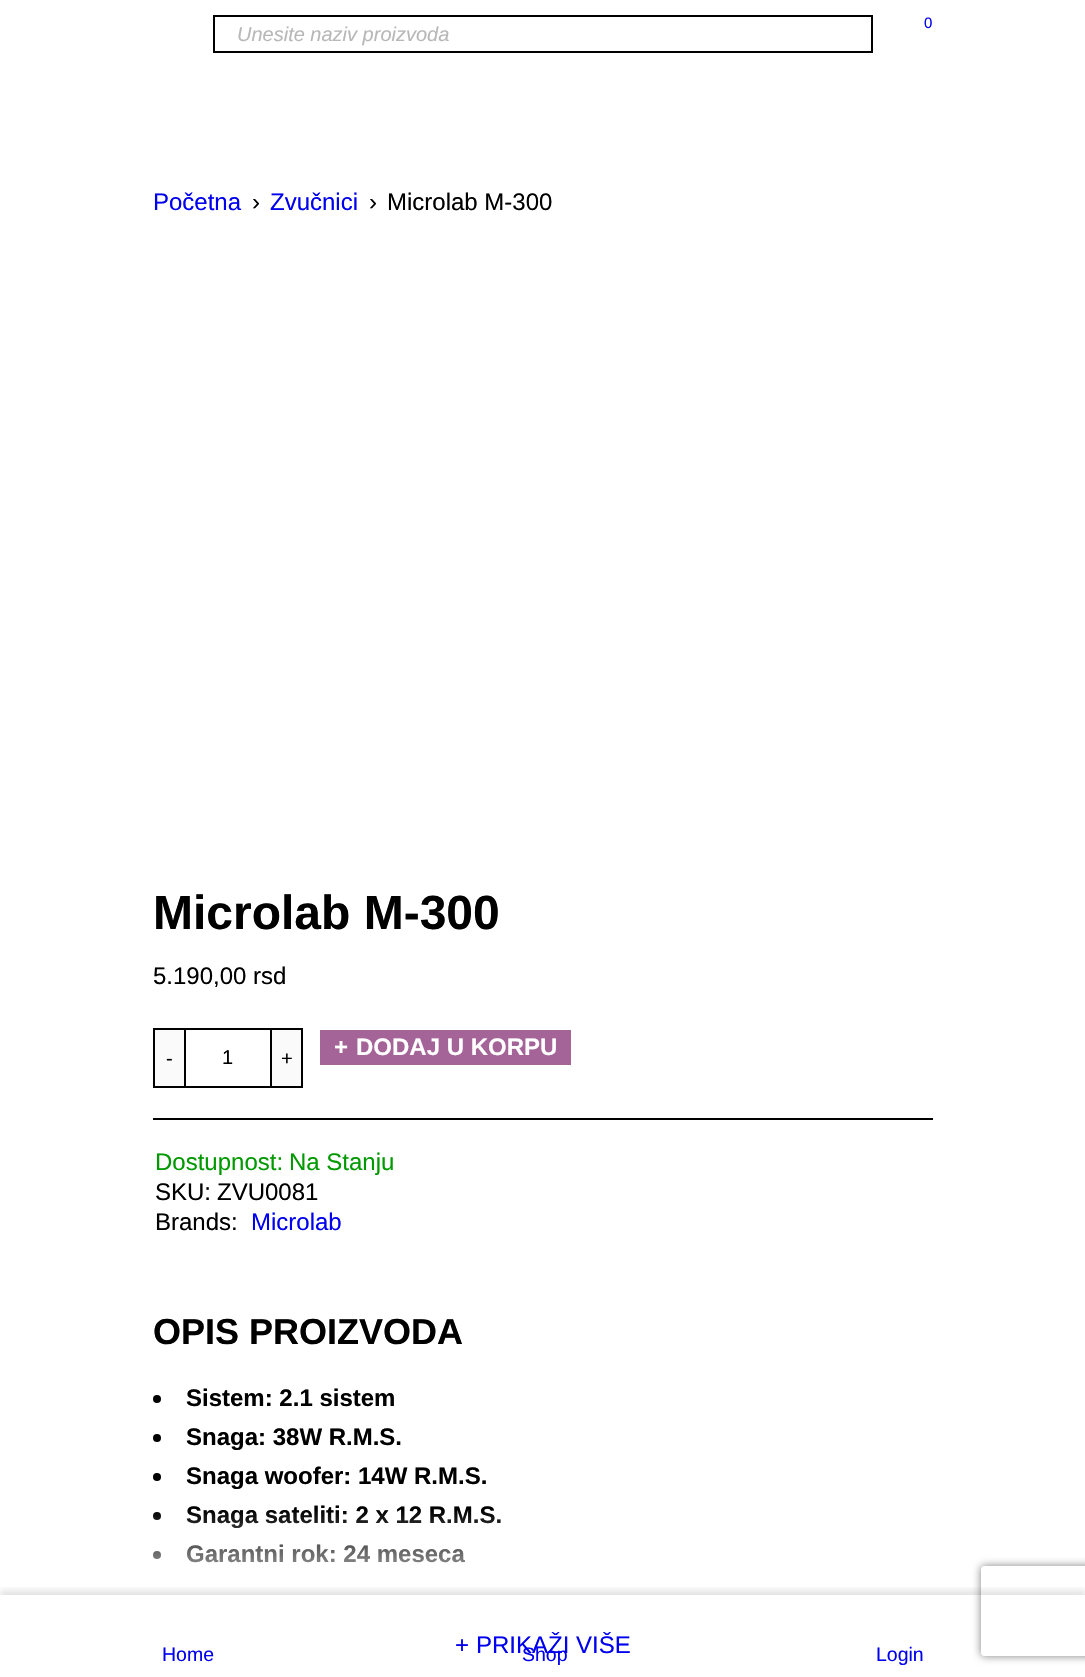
#include "include/core/SkBlurTypes.h"
#include "include/core/SkCanvas.h"
#include "include/core/SkData.h"
#include "include/core/SkFont.h"
#include "include/core/SkFontMgr.h"
#include "include/core/SkImage.h"
#include "include/core/SkMaskFilter.h"
#include "include/core/SkPaint.h"
#include "include/core/SkPathBuilder.h"
#include "include/core/SkTextBlob.h"
#include "include/effects/SkDashPathEffect.h"
#include "include/effects/SkGradientShader.h"
#include "include/utils/SkParsePath.h"

extern sk_sp<SkFontMgr> fontMgr;

static SkFont font(const char* family, int weight, float size, bool italic = false) {
    SkFontStyle style(weight, SkFontStyle::kNormal_Width,
        italic ? SkFontStyle::kItalic_Slant : SkFontStyle::kUpright_Slant);
    SkFont result(fontMgr->matchFamilyStyle(family, style), size);
    result.setSubpixel(true);
    return result;
}

static void drawLabel(SkCanvas* canvas, const char* s, float x, float y, const SkFont& font, SkColor color) {
    SkPaint ink(SkColor4f::FromColor(color));
    ink.setAntiAlias(true);
    canvas->drawString(s, x, y, font, ink);
}

static void fillRect(SkCanvas* canvas, float x, float y, float w, float h, SkColor color) {
    SkPaint ink(SkColor4f::FromColor(color));
    ink.setAntiAlias(true);
    canvas->drawRect(SkRect::MakeXYWH(x, y, w, h), ink);
}

static SkPath parsePath(const char* data, bool evenOdd = false) {
    SkPath result = *SkParsePath::FromSVGString(data);
    if (evenOdd) result.setFillType(SkPathFillType::kEvenOdd);
    return result;
}

void draw(SkCanvas* canvas) {
    SkPaint paint;
    paint.setAntiAlias(true);
    canvas->clear(0xFFFFFFFF);
    SkFont font1 = font("Liberation Sans", 400, 15);
    drawLabel(canvas, "0", 924, 28, font1, 0xFF0000EE);
    paint.setStroke(true);
    paint.setStrokeWidth(2);
    paint.setColor(0xFF000000);
    canvas->drawRect(SkRect::MakeXYWH(214, 16, 658, 36), paint);
    SkFont font2 = font("Liberation Sans", 400, 20, true);
    drawLabel(canvas, "Unesite naziv proizvoda", 237, 41, font2, 0xFFB8B8B8);
    SkFont font3 = font("Liberation Sans", 400, 24);
    drawLabel(canvas, "Početna", 153, 210, font3, 0xFF0000EE);
    drawLabel(canvas, "›", 252, 210, font3, 0xFF000000);
    drawLabel(canvas, "Zvučnici", 270, 210, font3, 0xFF0000EE);
    drawLabel(canvas, "›", 369, 210, font3, 0xFF000000);
    drawLabel(canvas, "Microlab M-300", 387, 210, font3, 0xFF000000);
    SkFont font4 = font("Liberation Sans", 700, 48);
    drawLabel(canvas, "Microlab M-300", 153, 929, font4, 0xFF000000);
    drawLabel(canvas, "5.190,00 rsd", 153, 984, font3, 0xFF000000);
    canvas->drawRect(SkRect::MakeXYWH(154, 1029, 148, 58), paint);
    paint.setStroke(false);
    paint.setColor(0xFFFAFAFA);
    canvas->drawRect(SkRect::MakeXYWH(154, 1029, 31, 58), paint);
    paint.setStroke(true);
    paint.setColor(0xFF000000);
    canvas->drawRect(SkRect::MakeXYWH(154, 1029, 31, 58), paint);
    SkFont font5 = font("Liberation Sans", 400, 20);
    drawLabel(canvas, "-", 166, 1065, font5, 0xFF000000);
    drawLabel(canvas, "1", 222, 1064, font5, 0xFF000000);
    paint.setStroke(false);
    paint.setColor(0xFFFAFAFA);
    canvas->drawRect(SkRect::MakeXYWH(271, 1029, 31, 58), paint);
    paint.setStroke(true);
    paint.setColor(0xFF000000);
    canvas->drawRect(SkRect::MakeXYWH(271, 1029, 31, 58), paint);
    drawLabel(canvas, "+", 281, 1065, font5, 0xFF000000);
    fillRect(canvas, 320, 1030, 251, 35, 0xFFA46497);
    SkFont font6 = font("Liberation Sans", 700, 24);
    drawLabel(canvas, "+", 334, 1055, font6, 0xFFFFFFFF);
    drawLabel(canvas, "DODAJ U KORPU", 356, 1055, font6, 0xFFFFFFFF);
    fillRect(canvas, 153, 1118, 780, 2, 0xFF000000);
    drawLabel(canvas, "Dostupnost:", 155, 1170, font3, 0xFF009900);
    drawLabel(canvas, "Na Stanju", 289, 1170, font3, 0xFF009900);
    drawLabel(canvas, "SKU:", 155, 1200, font3, 0xFF000000);
    drawLabel(canvas, "ZVU0081", 217, 1200, font3, 0xFF000000);
    drawLabel(canvas, "Brands:", 155, 1230, font3, 0xFF000000);
    drawLabel(canvas, "Microlab", 251, 1230, font3, 0xFF0000EE);
    SkFont font7 = font("Liberation Sans", 700, 36);
    drawLabel(canvas, "OPIS PROIZVODA", 153, 1344, font7, 0xFF000000);
    paint.setStroke(false);
    canvas->drawCircle(157, 1399, 4, paint);
    drawLabel(canvas, "Sistem: 2.1 sistem", 186, 1406, font6, 0xFF000000);
    canvas->drawCircle(157, 1438, 4, paint);
    drawLabel(canvas, "Snaga: 38W R.M.S.", 186, 1445, font6, 0xFF000000);
    canvas->drawCircle(157, 1477, 4, paint);
    drawLabel(canvas, "Snaga woofer: 14W R.M.S.", 186, 1484, font6, 0xFF000000);
    canvas->drawCircle(157, 1516, 4, paint);
    drawLabel(canvas, "Snaga sateliti: 2 x 12 R.M.S.", 186, 1523, font6, 0xFF000000);
    canvas->drawCircle(157, 1555, 4, paint);
    drawLabel(canvas, "Garantni rok: 24 meseca", 186, 1562, font6, 0xFF000000);
    {
        const SkColor colors[] = {0x00FFFFFF, 0xFFFFFFFF};
        const float stops[] = {0, 0.7f};
        const SkPoint ends[] = {{543, 1509}, {543, 1659}};
        paint.setShader(SkGradientShader::MakeLinear(ends, colors, stops, 2, SkTileMode::kClamp));
        paint.setAlpha(255);
    }
    canvas->drawRect(SkRect::MakeXYWH(153, 1511, 348, 52), paint);
    drawLabel(canvas, "+", 455, 1653, font3, 0xFF0000EE);
    drawLabel(canvas, "PRIKAŽI VIŠE", 476, 1653, font3, 0xFF0000EE);
    canvas->save();
    canvas->clipPath(parsePath("M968 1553H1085V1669H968ZM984 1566H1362C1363.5 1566 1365 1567.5 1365 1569V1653C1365 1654.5 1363.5 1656 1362 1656H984C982.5 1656 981 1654.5 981 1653V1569C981 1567.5 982.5 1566 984 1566Z", true), true);
    paint.setShader(nullptr);
    paint.setColor(0xFF808080);
    paint.setMaskFilter(SkMaskFilter::MakeBlur(kNormal_SkBlurStyle, 4));
    canvas->drawRoundRect(SkRect::MakeXYWH(981, 1566, 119, 90), 3, 3, paint);
    paint.setMaskFilter(nullptr);
    canvas->restore();
    canvas->save();
    canvas->clipRect(SkRect::MakeXYWH(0, 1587, 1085, 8));
    paint.setColor(0x1A000000);
    paint.setMaskFilter(SkMaskFilter::MakeBlur(kNormal_SkBlurStyle, 3));
    canvas->drawRect(SkRect::MakeXYWH(0, 1590, 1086, 83), paint);
    paint.setMaskFilter(nullptr);
    canvas->restore();
    SkFont font8 = font("Liberation Sans", 400, 19.5f);
    drawLabel(canvas, "Home", 162, 1661, font8, 0xFF0000EE);
    drawLabel(canvas, "Shop", 522, 1661, font8, 0xFF0000EE);
    drawLabel(canvas, "Login", 876, 1661, font8, 0xFF0000EE);
}
